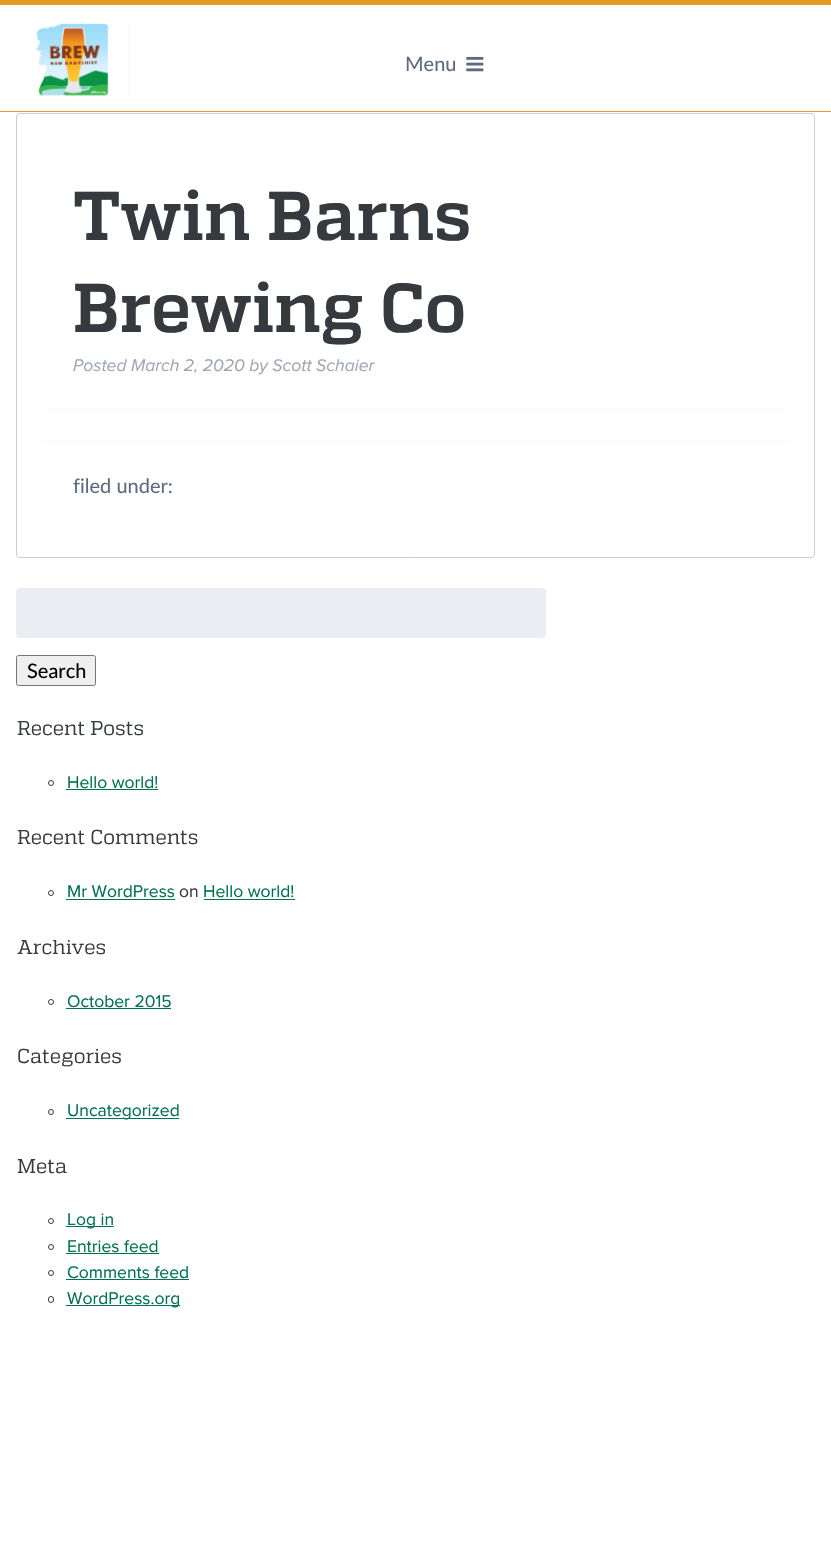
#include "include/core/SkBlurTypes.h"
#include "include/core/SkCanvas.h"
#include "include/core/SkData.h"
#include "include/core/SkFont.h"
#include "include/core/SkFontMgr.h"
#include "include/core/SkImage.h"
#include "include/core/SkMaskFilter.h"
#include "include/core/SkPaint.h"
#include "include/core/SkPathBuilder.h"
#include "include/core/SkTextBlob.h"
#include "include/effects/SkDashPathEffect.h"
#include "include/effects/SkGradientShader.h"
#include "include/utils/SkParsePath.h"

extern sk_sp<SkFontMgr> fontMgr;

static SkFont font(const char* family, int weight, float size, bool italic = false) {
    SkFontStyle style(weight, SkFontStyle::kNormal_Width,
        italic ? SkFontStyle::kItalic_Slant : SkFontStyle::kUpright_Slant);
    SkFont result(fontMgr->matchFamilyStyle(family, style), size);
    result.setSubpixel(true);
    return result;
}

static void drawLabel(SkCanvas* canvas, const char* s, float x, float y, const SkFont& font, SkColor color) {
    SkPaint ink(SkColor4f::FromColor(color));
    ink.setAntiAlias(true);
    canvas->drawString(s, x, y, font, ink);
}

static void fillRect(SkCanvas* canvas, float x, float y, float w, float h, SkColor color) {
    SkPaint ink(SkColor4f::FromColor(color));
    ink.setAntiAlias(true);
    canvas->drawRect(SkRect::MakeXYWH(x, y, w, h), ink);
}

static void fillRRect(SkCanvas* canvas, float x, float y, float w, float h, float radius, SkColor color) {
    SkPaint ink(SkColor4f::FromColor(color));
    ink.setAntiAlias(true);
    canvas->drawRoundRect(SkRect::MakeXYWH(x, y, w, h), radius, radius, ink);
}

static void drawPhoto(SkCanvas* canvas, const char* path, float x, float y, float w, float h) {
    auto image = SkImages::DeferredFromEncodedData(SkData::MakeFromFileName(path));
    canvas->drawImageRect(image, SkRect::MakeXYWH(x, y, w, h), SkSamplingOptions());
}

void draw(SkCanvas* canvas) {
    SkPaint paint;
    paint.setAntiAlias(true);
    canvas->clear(0xFFFFFFFF);
    fillRect(canvas, 0, 0, 831, 5, 0xFFE39B25);
    fillRect(canvas, 0, 111, 831, 1, 0xFFE39B25);
    drawPhoto(canvas, "assets/img1.png", 36, 20, 93, 76);
    SkFont font1 = font("Lato", 400, 20);
    drawLabel(canvas, "Menu", 405, 71, font1, 0xFF5C6B80);
    drawPhoto(canvas, "assets/img2.png", 466, 56, 18, 16);
    paint.setStroke(true);
    paint.setStrokeWidth(1);
    paint.setColor(0xFFCCCCCC);
    canvas->drawRoundRect(SkRect::MakeXYWH(16.5f, 113.5f, 798, 444), 3.5f, 3.5f, paint);
    fillRect(canvas, 43, 409, 746, 1, 0xFFF8F9FA);
    SkFont font2 = font("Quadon", 700, 68.75f);
    drawLabel(canvas, "Twin Barns", 73, 240, font2, 0xFF36393E);
    drawLabel(canvas, "Brewing Co", 73, 332, font2, 0xFF36393E);
    SkFont font3 = font("Proxima Nova", 400, 17.5f, true);
    drawLabel(canvas, "Posted March 2, 2020 by Scott Schaier", 73, 371, font3, 0xFF9FA6B4);
    fillRect(canvas, 43, 440, 746, 1, 0xFFF8F9FA);
    drawLabel(canvas, "filed under:", 73, 493, font1, 0xFF5C6B80);
    fillRRect(canvas, 16, 588, 530, 50, 4, 0xFFEAEDF2);
    paint.setStroke(false);
    paint.setColor(0xFFEFEFEF);
    canvas->drawRoundRect(SkRect::MakeXYWH(16.5f, 655.5f, 79, 30), 2, 2, paint);
    paint.setStroke(true);
    paint.setColor(0xFF767676);
    canvas->drawRoundRect(SkRect::MakeXYWH(16.5f, 655.5f, 79, 30), 2, 2, paint);
    drawLabel(canvas, "Search", 27, 678, font1, 0xFF000000);
    SkFont font4 = font("Quadon", 400, 20);
    drawLabel(canvas, "Recent Posts", 17, 735, font4, 0xFF36393E);
    paint.setColor(0xFF36393E);
    canvas->drawCircle(51, 783, 2.5f, paint);
    SkFont font5 = font("Proxima Nova", 400, 17.5f);
    drawLabel(canvas, "Hello world!", 67, 788, font5, 0xFF007253);
    fillRect(canvas, 66, 789, 92, 1, 0xFF007253);
    drawLabel(canvas, "Recent Comments", 17, 844, font4, 0xFF36393E);
    canvas->drawCircle(51, 893, 2.5f, paint);
    drawLabel(canvas, "Mr WordPress", 67, 897, font5, 0xFF007253);
    fillRect(canvas, 66, 899, 109, 1, 0xFF007253);
    drawLabel(canvas, "on", 179, 897, font5, 0xFF36393E);
    drawLabel(canvas, "Hello world!", 203, 897, font5, 0xFF007253);
    fillRect(canvas, 204, 899, 91, 1, 0xFF007253);
    drawLabel(canvas, "Archives", 17, 954, font4, 0xFF36393E);
    canvas->drawCircle(51, 1002, 2.5f, paint);
    drawLabel(canvas, "October 2015", 67, 1007, font5, 0xFF007253);
    fillRect(canvas, 66, 1008, 105, 1, 0xFF007253);
    drawLabel(canvas, "Categories", 17, 1063, font4, 0xFF36393E);
    canvas->drawCircle(51, 1112, 2.5f, paint);
    fillRect(canvas, 66, 1118, 113, 1, 0xFF007253);
    drawLabel(canvas, "Uncategorized", 67, 1116, font5, 0xFF007253);
    drawLabel(canvas, "Meta", 17, 1173, font4, 0xFF36393E);
    canvas->drawCircle(51, 1221, 2.5f, paint);
    fillRect(canvas, 66, 1226, 48, 1, 0xFF007253);
    drawLabel(canvas, "Log in", 67, 1225, font5, 0xFF007253);
    canvas->drawCircle(51, 1247, 2.5f, paint);
    drawLabel(canvas, "Entries feed", 67, 1252, font5, 0xFF007253);
    fillRect(canvas, 66, 1253, 93, 1, 0xFF007253);
    canvas->drawCircle(51, 1273, 2.5f, paint);
    drawLabel(canvas, "Comments feed", 67, 1278, font5, 0xFF007253);
    fillRect(canvas, 66, 1279, 123, 1, 0xFF007253);
    canvas->drawRoundRect(SkRect::MakeXYWH(48.5f, 1296.5f, 5, 6), 2.5f, 2.5f, paint);
    fillRect(canvas, 66, 1305, 114, 1, 0xFF007253);
    drawLabel(canvas, "WordPress.org", 67, 1304, font5, 0xFF007253);
}
